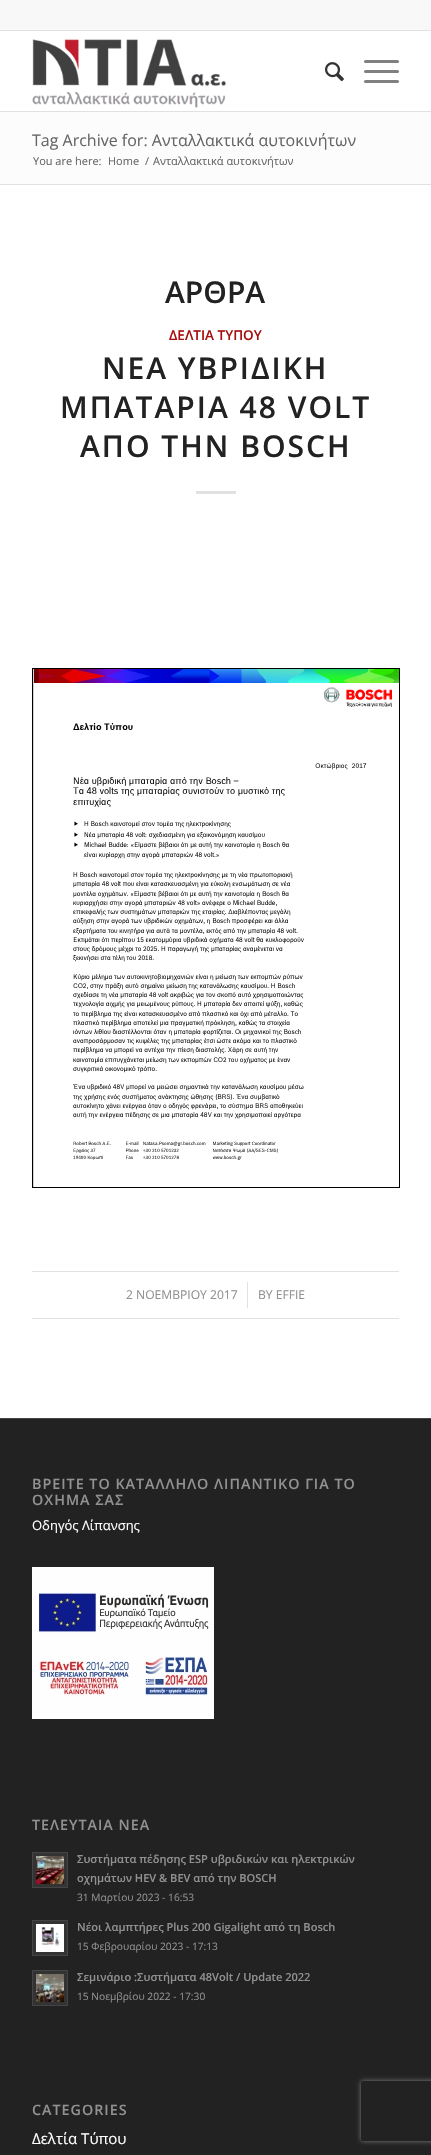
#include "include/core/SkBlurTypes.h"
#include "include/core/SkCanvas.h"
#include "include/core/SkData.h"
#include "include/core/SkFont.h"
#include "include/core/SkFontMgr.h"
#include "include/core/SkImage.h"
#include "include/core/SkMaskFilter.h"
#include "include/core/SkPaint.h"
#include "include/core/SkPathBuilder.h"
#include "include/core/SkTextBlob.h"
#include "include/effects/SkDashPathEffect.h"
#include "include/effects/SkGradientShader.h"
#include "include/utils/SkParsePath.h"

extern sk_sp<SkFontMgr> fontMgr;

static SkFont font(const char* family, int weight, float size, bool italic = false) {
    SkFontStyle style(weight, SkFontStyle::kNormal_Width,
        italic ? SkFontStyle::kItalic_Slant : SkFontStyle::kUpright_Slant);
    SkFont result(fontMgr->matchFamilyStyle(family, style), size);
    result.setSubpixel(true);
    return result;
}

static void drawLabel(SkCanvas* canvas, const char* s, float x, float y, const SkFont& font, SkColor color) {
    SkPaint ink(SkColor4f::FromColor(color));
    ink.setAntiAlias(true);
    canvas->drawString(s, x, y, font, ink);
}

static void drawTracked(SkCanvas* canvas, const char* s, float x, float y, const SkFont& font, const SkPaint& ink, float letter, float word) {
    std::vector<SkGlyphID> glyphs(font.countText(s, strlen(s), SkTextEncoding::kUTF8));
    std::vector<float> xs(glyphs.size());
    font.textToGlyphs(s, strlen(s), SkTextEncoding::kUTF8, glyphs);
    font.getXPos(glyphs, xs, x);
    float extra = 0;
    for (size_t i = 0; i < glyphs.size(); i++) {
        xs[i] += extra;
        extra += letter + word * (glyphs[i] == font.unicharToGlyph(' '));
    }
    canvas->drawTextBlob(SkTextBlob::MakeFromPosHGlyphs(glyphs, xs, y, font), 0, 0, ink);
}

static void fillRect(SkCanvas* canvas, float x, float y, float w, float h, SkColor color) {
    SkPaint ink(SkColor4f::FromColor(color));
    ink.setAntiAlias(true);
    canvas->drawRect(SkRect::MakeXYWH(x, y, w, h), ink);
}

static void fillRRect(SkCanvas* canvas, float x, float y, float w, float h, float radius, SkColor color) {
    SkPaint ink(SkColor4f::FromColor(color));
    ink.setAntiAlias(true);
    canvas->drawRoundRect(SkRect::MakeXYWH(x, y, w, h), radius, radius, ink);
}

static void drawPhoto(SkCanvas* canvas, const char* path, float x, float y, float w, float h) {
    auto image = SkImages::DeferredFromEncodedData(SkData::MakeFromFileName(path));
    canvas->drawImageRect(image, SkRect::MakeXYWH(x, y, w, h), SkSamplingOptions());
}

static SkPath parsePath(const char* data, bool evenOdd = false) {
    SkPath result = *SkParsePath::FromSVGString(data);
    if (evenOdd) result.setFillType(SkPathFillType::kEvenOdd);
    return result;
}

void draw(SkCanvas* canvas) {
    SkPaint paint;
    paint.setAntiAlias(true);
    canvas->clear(0xFFFFFFFF);
    fillRect(canvas, 0, 0, 431, 30, 0xFFF8F8F8);
    fillRect(canvas, 0, 30, 431, 1, 0xFFE1E1E1);
    fillRect(canvas, 0, 111, 431, 1, 0xFFE1E1E1);
    drawPhoto(canvas, "assets/img1.png", 32, 39, 194, 69);
    drawPhoto(canvas, "assets/img2.png", 325, 62, 19, 20);
    fillRRect(canvas, 364, 70, 35, 3, 1.5f, 0xFF808080);
    fillRRect(canvas, 364, 60, 35, 3, 1.5f, 0xFF808080);
    fillRRect(canvas, 364, 80, 35, 3, 1.5f, 0xFF808080);
    fillRect(canvas, 0, 112, 431, 72, 0xFFFCFCFC);
    SkFont font1 = font("Open Sans", 400, 16);
    drawLabel(canvas, "Tag Archive for: Ανταλλακτικά αυτοκινήτων", 32, 146, font1, 0xFF666666);
    SkFont font2 = font("Open Sans", 400, 11);
    drawLabel(canvas, "You are here:", 33, 165, font2, 0xFF666666);
    drawLabel(canvas, "Home", 108, 165, font2, 0xFF666666);
    drawLabel(canvas, "/", 145, 165, font2, 0xFF666666);
    drawLabel(canvas, "Ανταλλακτικά αυτοκινήτων", 153, 165, font2, 0xFF666666);
    fillRect(canvas, 0, 184, 431, 1, 0xFFE1E1E1);
    SkFont font3 = font("Open Sans", 600, 30);
    drawLabel(canvas, "ΑΡΘΡΑ", 165, 303, font3, 0xFF222222);
    SkFont font4 = font("Open Sans", 600, 13.5f);
    drawLabel(canvas, "ΔΕΛΤΙΑ ΤΥΠΟΥ", 169, 340, font4, 0xFFA81010);
    paint.setColor(0xFF222222);
    drawTracked(canvas, "ΝΕΑ ΥΒΡΙΔΙΚΗ", 102, 379, font3, paint, 2, 0);
    drawTracked(canvas, "ΜΠΑΤΑΡΙΑ 48 VOLT", 60, 418, font3, paint, 2, 0);
    drawTracked(canvas, "ΑΠΟ ΤΗΝ BOSCH", 80, 457, font3, paint, 2, 0);
    fillRect(canvas, 196, 491, 40, 3, 0xFFE1E1E1);
    fillRect(canvas, 33, 669, 1, 518, 0xFFD3D3D3);
    paint.setStroke(true);
    paint.setStrokeWidth(1);
    paint.setColor(0xFF000000);
    canvas->drawRect(SkRect::MakeXYWH(32.5f, 668.5f, 367, 519), paint);
    drawPhoto(canvas, "assets/img3.png", 34, 669, 365, 491);
    fillRect(canvas, 32, 1271, 367, 1, 0xFFE1E1E1);
    fillRect(canvas, 32, 1318, 367, 1, 0xFFE1E1E1);
    SkFont font5 = font("Open Sans", 400, 12.1f);
    drawLabel(canvas, "2 ΝΟΕΜΒΡΙΟΥ 2017", 126, 1299, font5, 0xFF919191);
    fillRect(canvas, 247, 1282, 1, 26, 0xFFE1E1E1);
    drawLabel(canvas, "BY EFFIE", 258, 1299, font5, 0xFF919191);
    fillRect(canvas, 0, 1419, 431, 736, 0xFF222222);
    fillRect(canvas, 0, 1418, 431, 1, 0xFF444444);
    SkFont font6 = font("Open Sans", 600, 14.3f);
    paint.setStroke(false);
    paint.setColor(0xFF919191);
    drawTracked(canvas, "ΒΡΕΙΤΕ ΤΟ ΚΑΤΑΛΛΗΛΟ ΛΙΠΑΝΤΙΚΟ ΓΙΑ ΤΟ", 32, 1489, font6, paint, 1, 0);
    drawTracked(canvas, "ΟΧΗΜΑ ΣΑΣ", 32, 1505, font6, paint, 1, 0);
    SkFont font7 = font("Open Sans", 400, 13);
    drawLabel(canvas, "Οδηγός Λίπανσης", 32, 1530, font7, 0xFFFFFFFF);
    drawPhoto(canvas, "assets/img4.png", 32, 1567, 182, 152);
    drawTracked(canvas, "ΤΕΛΕΥΤΑΙΑ ΝΕΑ", 32, 1830, font6, paint, 1, 0);
    paint.setColor(0xFF333333);
    canvas->drawRect(SkRect::MakeXYWH(32.5f, 1852.5f, 35, 35), paint);
    paint.setStroke(true);
    paint.setColor(0xFF444444);
    canvas->drawRect(SkRect::MakeXYWH(32.5f, 1852.5f, 35, 35), paint);
    drawPhoto(canvas, "assets/img5.png", 36, 1856, 28, 28);
    SkFont font8 = font("Open Sans", 600, 11.05f);
    drawLabel(canvas, "Συστήματα πέδησης ESP υβριδικών και ηλεκτρικών", 77, 1863, font8, 0xFF919191);
    drawLabel(canvas, "οχημάτων HEV & BEV από την BOSCH", 77, 1882, font8, 0xFF919191);
    SkFont font9 = font("Open Sans", 400, 10.2f);
    drawLabel(canvas, "31 Μαρτίου 2023 - 16:53", 77, 1901, font9, 0xFF919191);
    paint.setStroke(false);
    paint.setColor(0xFF333333);
    canvas->drawRect(SkRect::MakeXYWH(32.5f, 1920.5f, 35, 35), paint);
    paint.setStroke(true);
    paint.setColor(0xFF444444);
    canvas->drawRect(SkRect::MakeXYWH(32.5f, 1920.5f, 35, 35), paint);
    drawPhoto(canvas, "assets/img6.png", 36, 1924, 28, 28);
    drawLabel(canvas, "Νέοι λαμπτήρες Plus 200 Gigalight από τη Bosch", 77, 1931, font8, 0xFF919191);
    drawLabel(canvas, "15 Φεβρουαρίου 2023 - 17:13", 77, 1950, font9, 0xFF919191);
    paint.setStroke(false);
    paint.setColor(0xFF333333);
    canvas->drawRect(SkRect::MakeXYWH(32.5f, 1970.5f, 35, 35), paint);
    paint.setStroke(true);
    paint.setColor(0xFF444444);
    canvas->drawRect(SkRect::MakeXYWH(32.5f, 1970.5f, 35, 35), paint);
    drawPhoto(canvas, "assets/img7.png", 36, 1974, 28, 28);
    drawLabel(canvas, "Σεμινάριο :Συστήματα 48Volt / Update 2022", 77, 1981, font8, 0xFF919191);
    drawLabel(canvas, "15 Νοεμβρίου 2022 - 17:30", 77, 2000, font9, 0xFF919191);
    paint.setStroke(false);
    paint.setColor(0xFF919191);
    drawTracked(canvas, "CATEGORIES", 32, 2115, font6, paint, 1, 0);
    SkFont font10 = font("Open Sans", 400, 15);
    drawLabel(canvas, "Δελτία Τύπου", 32, 2144, font10, 0xFFFFFFFF);
    canvas->save();
    canvas->clipPath(parsePath("M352 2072H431V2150H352ZM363 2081H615C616 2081 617 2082 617 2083V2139C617 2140 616 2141 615 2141H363C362 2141 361 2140 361 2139V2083C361 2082 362 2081 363 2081Z", true), true);
    paint.setColor(0xFF808080);
    paint.setMaskFilter(SkMaskFilter::MakeBlur(kNormal_SkBlurStyle, 2.5f));
    canvas->drawRoundRect(SkRect::MakeXYWH(361, 2081, 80, 60), 2, 2, paint);
    paint.setMaskFilter(nullptr);
    canvas->restore();
}
